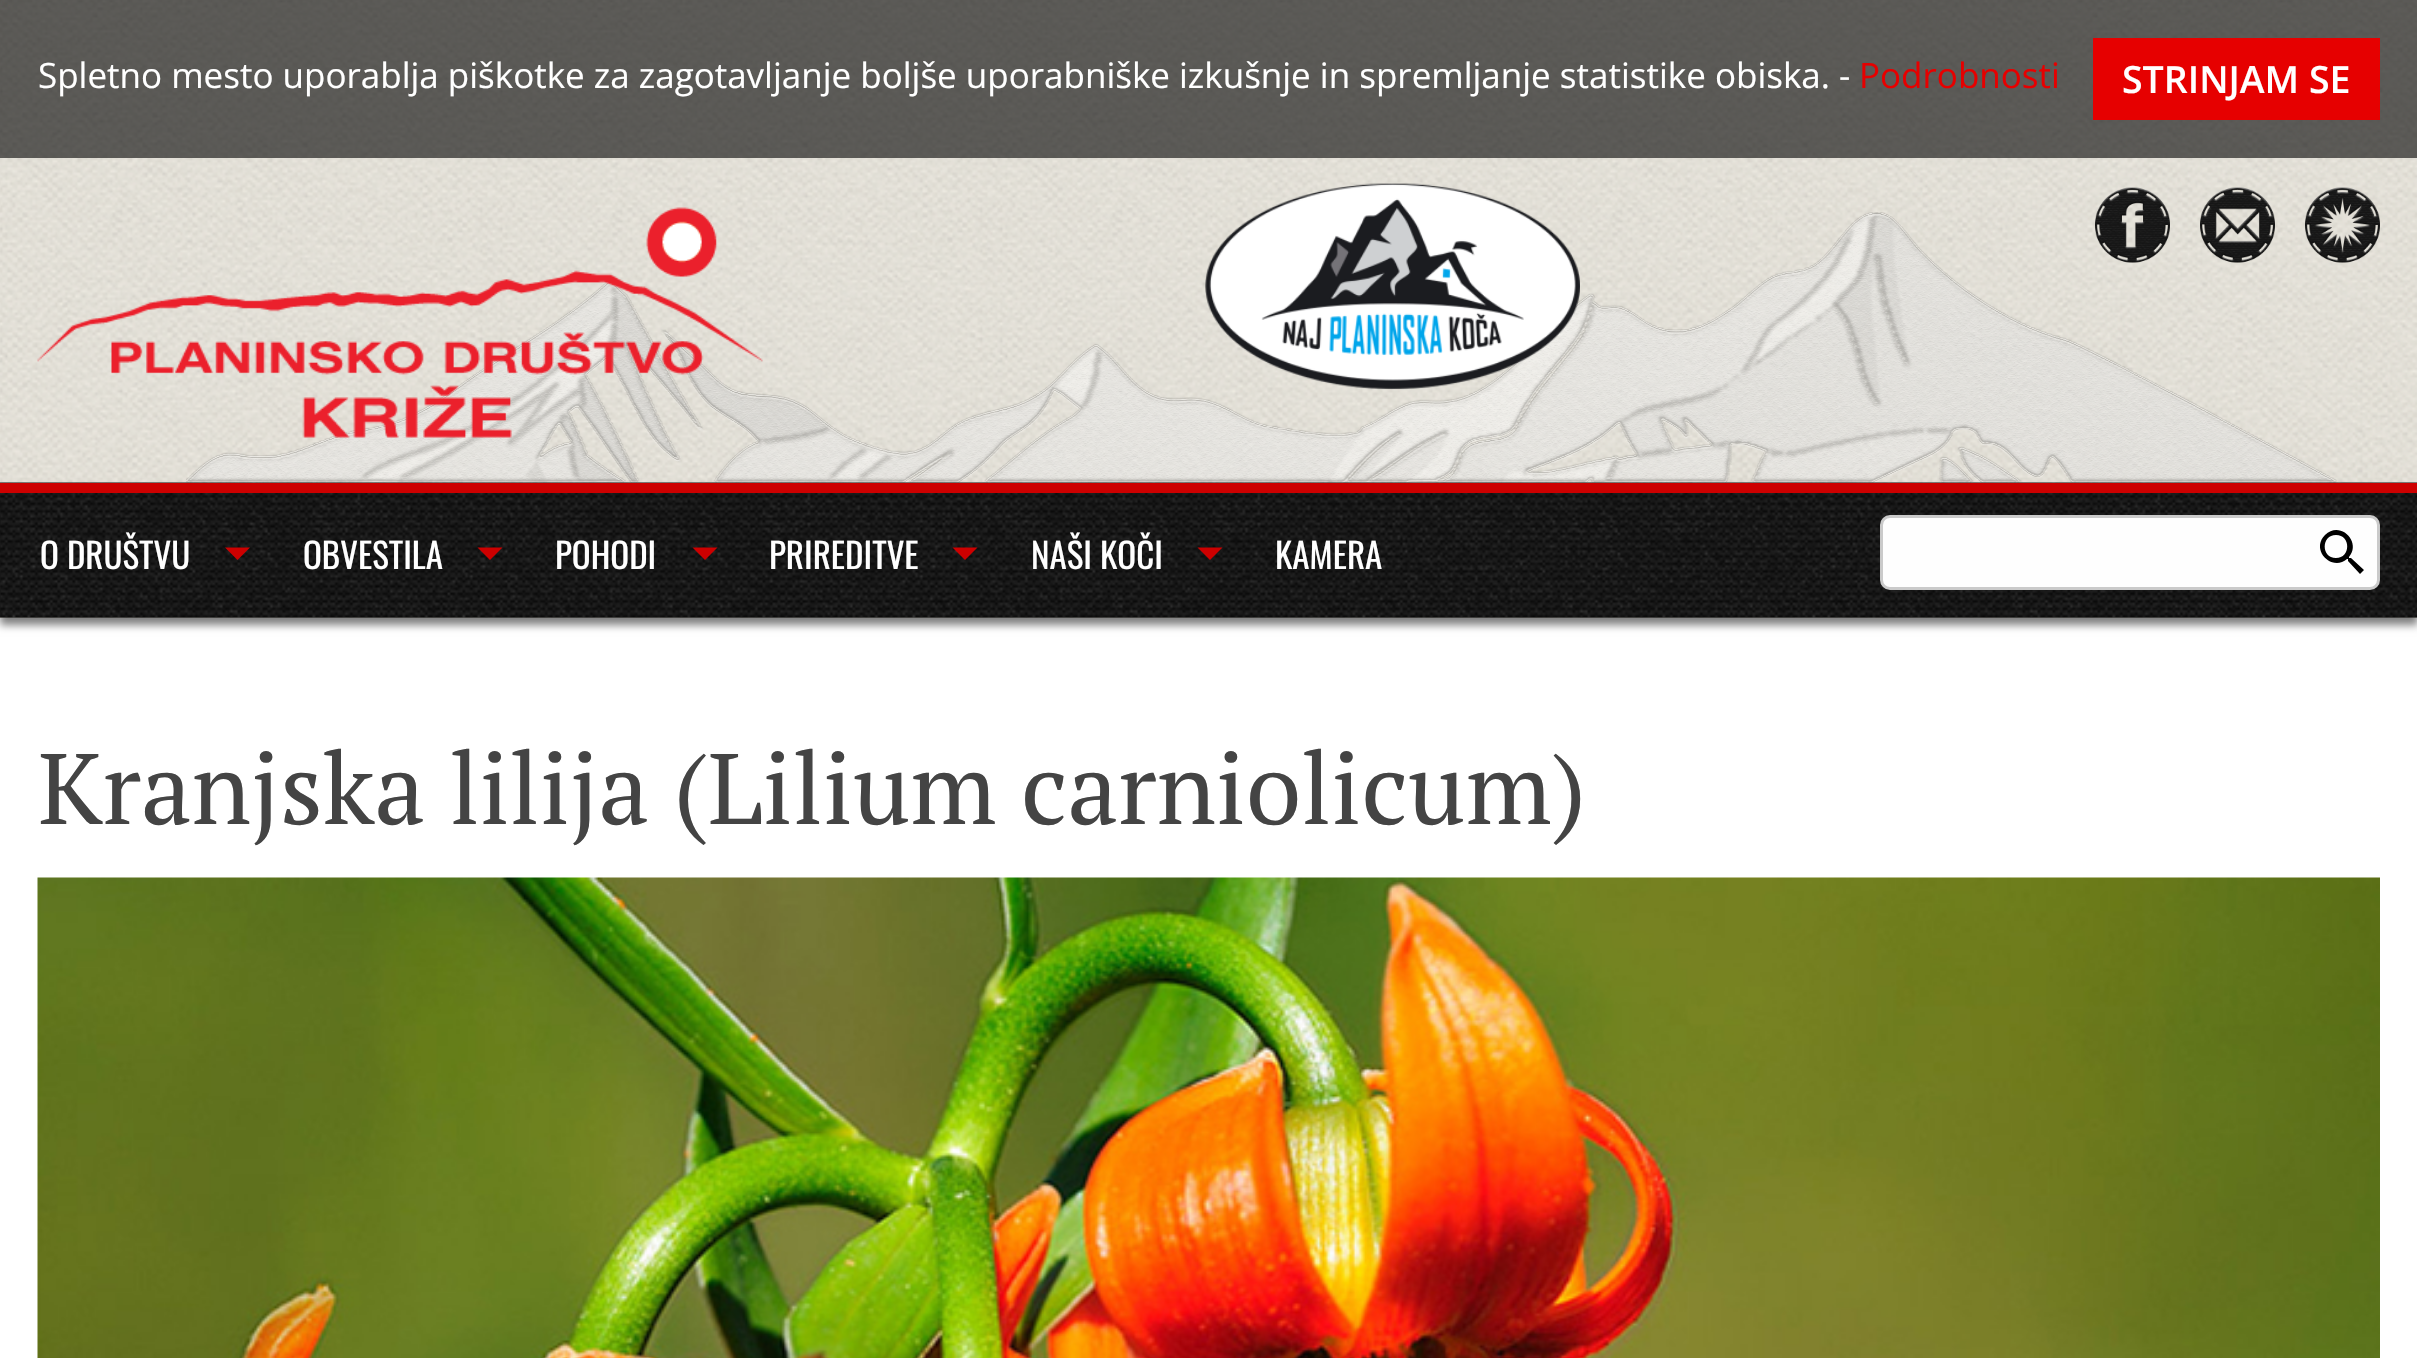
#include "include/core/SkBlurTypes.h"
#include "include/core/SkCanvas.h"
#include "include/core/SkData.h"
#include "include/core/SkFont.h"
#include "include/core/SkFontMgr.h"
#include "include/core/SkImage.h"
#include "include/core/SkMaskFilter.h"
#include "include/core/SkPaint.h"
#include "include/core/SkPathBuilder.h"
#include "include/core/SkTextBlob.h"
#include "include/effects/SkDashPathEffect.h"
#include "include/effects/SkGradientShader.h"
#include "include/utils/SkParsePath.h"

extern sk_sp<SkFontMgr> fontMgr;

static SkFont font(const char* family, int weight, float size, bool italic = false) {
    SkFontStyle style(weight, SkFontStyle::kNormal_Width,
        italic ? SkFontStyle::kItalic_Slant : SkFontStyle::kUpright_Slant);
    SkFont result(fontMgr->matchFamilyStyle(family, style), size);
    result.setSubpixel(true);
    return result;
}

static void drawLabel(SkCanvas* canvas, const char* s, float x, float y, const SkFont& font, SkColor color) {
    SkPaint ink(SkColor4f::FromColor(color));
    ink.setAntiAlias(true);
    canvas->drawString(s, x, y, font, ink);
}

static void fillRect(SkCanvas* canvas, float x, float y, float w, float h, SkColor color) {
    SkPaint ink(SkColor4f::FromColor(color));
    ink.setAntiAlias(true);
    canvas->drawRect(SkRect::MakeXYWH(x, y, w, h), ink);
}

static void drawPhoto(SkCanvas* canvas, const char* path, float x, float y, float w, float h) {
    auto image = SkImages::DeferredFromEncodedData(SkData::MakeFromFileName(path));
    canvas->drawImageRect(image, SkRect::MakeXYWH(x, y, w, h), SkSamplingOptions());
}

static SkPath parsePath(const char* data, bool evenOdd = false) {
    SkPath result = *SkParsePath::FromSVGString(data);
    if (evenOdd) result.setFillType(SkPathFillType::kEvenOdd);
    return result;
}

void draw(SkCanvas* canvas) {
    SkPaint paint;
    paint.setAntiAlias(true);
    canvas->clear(0xFFFFFFFF);
    drawPhoto(canvas, "assets/img1.png", 0, 0, 2417, 618);
    fillRect(canvas, 0, 0, 2417, 158, 0x99000000);
    SkFont font1 = font("Open Sans", 400, 35);
    drawLabel(canvas, "Spletno mesto uporablja piškotke za zagotavljanje boljše uporabniške izkušnje in spremljanje statistike obiska. -", 38, 88, font1, 0xFFFFFFFF);
    drawLabel(canvas, "Podrobnosti", 1859, 88, font1, 0xFFE60000);
    fillRect(canvas, 2093, 38, 287, 82, 0xFFE60000);
    SkFont font2 = font("Open Sans", 600, 37.5f);
    drawLabel(canvas, "STRINJAM SE", 2122, 93, font2, 0xFFFFFFFF);
    drawPhoto(canvas, "assets/img2.png", 186, 212, 2151, 271);
    drawPhoto(canvas, "assets/img3.png", 37, 207, 726, 231);
    drawPhoto(canvas, "assets/img4.png", 1205, 183, 375, 207);
    drawPhoto(canvas, "assets/img5.png", 2095, 187, 75, 76);
    drawPhoto(canvas, "assets/img6.png", 2200, 187, 75, 76);
    drawPhoto(canvas, "assets/img7.png", 2305, 187, 75, 76);
    paint.setColor(0x73000000);
    paint.setMaskFilter(SkMaskFilter::MakeBlur(kNormal_SkBlurStyle, 6));
    canvas->drawRect(SkRect::MakeXYWH(0, 623, 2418, 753), paint);
    paint.setMaskFilter(nullptr);
    fillRect(canvas, 0, 618, 2417, 740, 0xFFFFFFFF);
    paint.setColor(0x80000000);
    paint.setMaskFilter(SkMaskFilter::MakeBlur(kNormal_SkBlurStyle, 4));
    canvas->drawRect(SkRect::MakeXYWH(0, 490, 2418, 135), paint);
    paint.setMaskFilter(nullptr);
    drawPhoto(canvas, "assets/img8.png", 0, 482, 2417, 136);
    paint.setColor(0xFFFEFEFE);
    canvas->drawRoundRect(SkRect::MakeXYWH(1881.5f, 516.5f, 497, 72), 8.5f, 8.5f, paint);
    paint.setStroke(true);
    paint.setStrokeWidth(3);
    paint.setColor(0xFFCACACA);
    canvas->drawRoundRect(SkRect::MakeXYWH(1881.5f, 516.5f, 497, 72), 8.5f, 8.5f, paint);
    paint.setStroke(false);
    paint.setColor(0xFF000000);
    canvas->drawPath(parsePath("M2351 558H2349V557C2362 542 2340 520 2325 535C2310 550 2332 572 2347 559H2348V561L2360 574L2364 570ZM2336 558C2321 558 2321 535 2336 535C2351 535 2351 558 2336 558Z"), paint);
    fillRect(canvas, 0, 483, 2417, 10, 0xFFCD0000);
    SkFont font3 = font("Oswald", 400, 35);
    drawLabel(canvas, "O DRUŠTVU", 40, 569, font3, 0xFFFFFFFF);
    paint.setColor(0xFFCD0000);
    canvas->drawPath(parsePath("M225 547.5H250L237.5 560Z"), paint);
    drawLabel(canvas, "OBVESTILA", 303, 569, font3, 0xFFFFFFFF);
    canvas->drawPath(parsePath("M477.5 547.5H502.5L490 560Z"), paint);
    drawLabel(canvas, "POHODI", 555, 569, font3, 0xFFFFFFFF);
    canvas->drawPath(parsePath("M692.5 547.5H717.5L705 560Z"), paint);
    drawLabel(canvas, "PRIREDITVE", 769, 569, font3, 0xFFFFFFFF);
    canvas->drawPath(parsePath("M952.5 547.5H977.5L965 560Z"), paint);
    drawLabel(canvas, "NAŠI KOČI", 1031, 569, font3, 0xFFFFFFFF);
    canvas->drawPath(parsePath("M1197.5 547.5H1222.5L1210 560Z"), paint);
    drawLabel(canvas, "KAMERA", 1275, 569, font3, 0xFFFFFFFF);
    SkFont font4 = font("PT Serif", 400, 100);
    drawLabel(canvas, "Kranjska lilija (Lilium carniolicum)", 38, 824, font4, 0xFF444444);
    drawPhoto(canvas, "assets/img9.png", 37, 877, 2343, 481);
}
